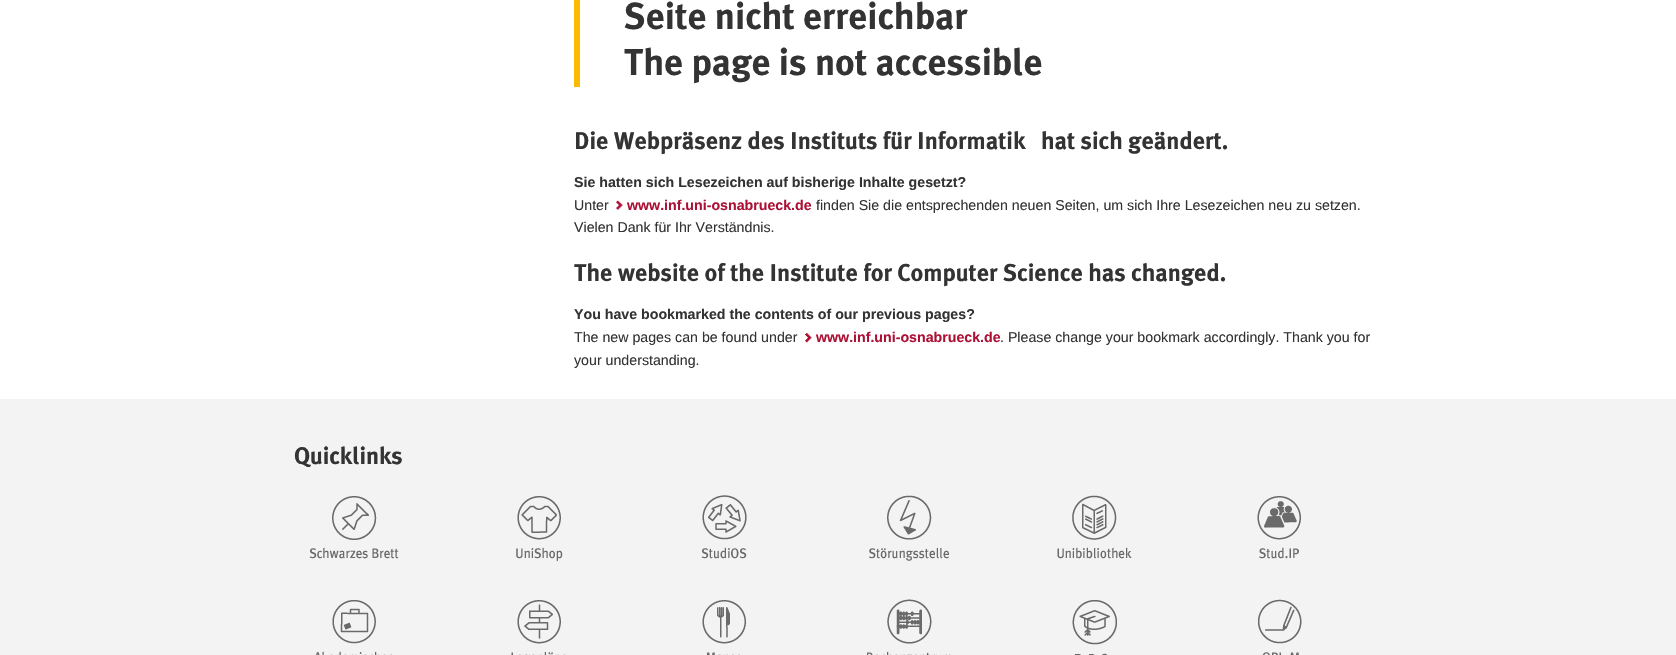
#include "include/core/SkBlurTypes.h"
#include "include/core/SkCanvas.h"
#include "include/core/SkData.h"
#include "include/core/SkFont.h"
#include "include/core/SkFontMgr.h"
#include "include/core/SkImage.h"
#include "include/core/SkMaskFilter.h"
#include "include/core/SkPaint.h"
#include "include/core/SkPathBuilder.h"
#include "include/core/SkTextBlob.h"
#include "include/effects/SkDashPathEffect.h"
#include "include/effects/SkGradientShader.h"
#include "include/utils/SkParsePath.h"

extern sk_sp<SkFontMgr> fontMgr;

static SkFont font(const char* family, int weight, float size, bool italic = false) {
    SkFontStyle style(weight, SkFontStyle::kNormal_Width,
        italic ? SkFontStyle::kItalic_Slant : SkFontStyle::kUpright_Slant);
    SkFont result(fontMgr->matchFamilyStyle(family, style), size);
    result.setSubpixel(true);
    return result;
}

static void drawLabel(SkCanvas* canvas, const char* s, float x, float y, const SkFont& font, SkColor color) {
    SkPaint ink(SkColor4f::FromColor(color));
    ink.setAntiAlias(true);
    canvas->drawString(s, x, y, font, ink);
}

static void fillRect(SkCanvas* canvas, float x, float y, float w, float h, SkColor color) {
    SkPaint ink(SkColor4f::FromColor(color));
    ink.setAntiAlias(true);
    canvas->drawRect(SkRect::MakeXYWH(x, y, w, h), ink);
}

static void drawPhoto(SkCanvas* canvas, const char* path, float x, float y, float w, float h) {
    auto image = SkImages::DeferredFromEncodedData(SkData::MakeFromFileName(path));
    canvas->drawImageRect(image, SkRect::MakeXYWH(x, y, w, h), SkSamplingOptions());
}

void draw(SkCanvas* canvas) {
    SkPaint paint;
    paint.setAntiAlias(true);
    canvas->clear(0xFFFFFFFF);
    fillRect(canvas, 574, 0, 6, 87, 0xFFFBB900);
    SkFont font1 = font("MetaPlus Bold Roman", 700, 37.25f);
    drawLabel(canvas, "Seite nicht erreichbar", 624, 29, font1, 0xFF333333);
    drawLabel(canvas, "The page is not accessible", 624, 75, font1, 0xFF333333);
    SkFont font2 = font("MetaPlus Bold Roman", 700, 24.2f);
    drawLabel(canvas, "Die Webpräsenz des Instituts für Informatik", 574, 149, font2, 0xFF333333);
    drawLabel(canvas, "hat sich geändert.", 1041, 149, font2, 0xFF333333);
    SkFont font3 = font("Liberation Sans", 700, 14.2f);
    drawLabel(canvas, "Sie hatten sich Lesezeichen auf bisherige Inhalte gesetzt?", 574, 187, font3, 0xFF333333);
    SkFont font4 = font("Liberation Sans", 400, 14.2f);
    drawLabel(canvas, "Unter", 574, 210, font4, 0xFF333333);
    drawPhoto(canvas, "assets/img1.png", 616, 200, 8, 10);
    drawLabel(canvas, "www.inf.uni-osnabrueck.de", 627, 210, font3, 0xFFAC1035);
    drawLabel(canvas, "finden Sie die entsprechenden neuen Seiten, um sich Ihre Lesezeichen neu zu setzen.", 816, 210, font4, 0xFF333333);
    drawLabel(canvas, "Vielen Dank für Ihr Verständnis.", 574, 232, font4, 0xFF333333);
    drawLabel(canvas, "The website of the Institute for Computer Science has changed.", 574, 281, font2, 0xFF333333);
    drawLabel(canvas, "You have bookmarked the contents of our previous pages?", 574, 319, font3, 0xFF333333);
    drawLabel(canvas, "The new pages can be found under", 574, 342, font4, 0xFF333333);
    drawPhoto(canvas, "assets/img2.png", 805, 333, 7, 10);
    drawLabel(canvas, "www.inf.uni-osnabrueck.de", 816, 342, font3, 0xFFAC1035);
    drawLabel(canvas, ". Please change your bookmark accordingly. Thank you for", 1000, 342, font4, 0xFF333333);
    drawLabel(canvas, "your understanding.", 574, 365, font4, 0xFF333333);
    fillRect(canvas, 0, 399, 1676, 256, 0xFFF3F3F3);
    SkFont font5 = font("MetaPlus Bold Roman", 700, 24);
    drawLabel(canvas, "Quicklinks", 294, 464, font5, 0xFF333333);
    drawPhoto(canvas, "assets/img3.png", 309, 496, 90, 63);
    drawPhoto(canvas, "assets/img4.png", 516, 496, 47, 66);
    drawPhoto(canvas, "assets/img5.png", 701, 495, 46, 64);
    drawPhoto(canvas, "assets/img6.png", 869, 495, 80, 66);
    drawPhoto(canvas, "assets/img7.png", 1057, 495, 75, 64);
    drawPhoto(canvas, "assets/img8.png", 1257, 496, 44, 63);
    drawPhoto(canvas, "assets/img9.png", 316, 600, 76, 55);
    drawPhoto(canvas, "assets/img10.png", 511, 600, 55, 55);
    drawPhoto(canvas, "assets/img11.png", 702, 600, 44, 55);
    drawPhoto(canvas, "assets/img12.png", 867, 599, 84, 56);
    drawPhoto(canvas, "assets/img13.png", 1072, 600, 45, 55);
    drawPhoto(canvas, "assets/img14.png", 1258, 599, 44, 56);
}
